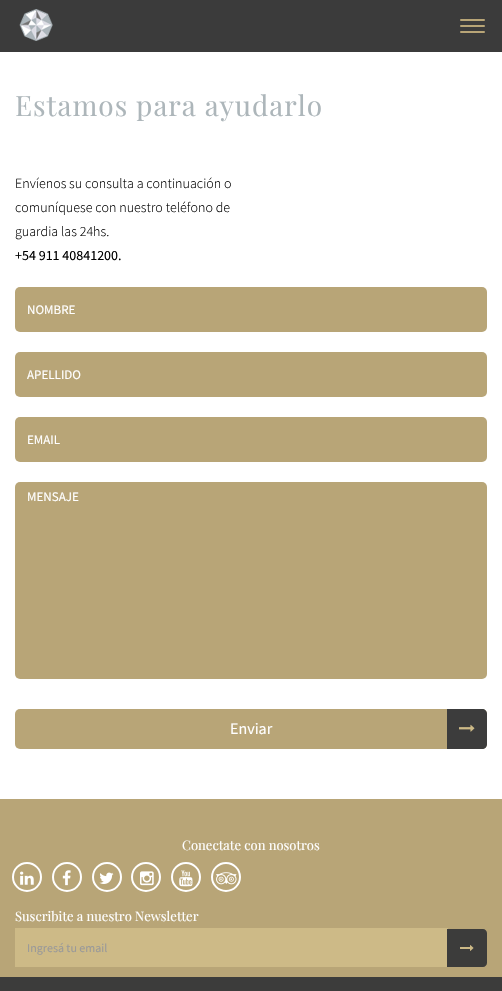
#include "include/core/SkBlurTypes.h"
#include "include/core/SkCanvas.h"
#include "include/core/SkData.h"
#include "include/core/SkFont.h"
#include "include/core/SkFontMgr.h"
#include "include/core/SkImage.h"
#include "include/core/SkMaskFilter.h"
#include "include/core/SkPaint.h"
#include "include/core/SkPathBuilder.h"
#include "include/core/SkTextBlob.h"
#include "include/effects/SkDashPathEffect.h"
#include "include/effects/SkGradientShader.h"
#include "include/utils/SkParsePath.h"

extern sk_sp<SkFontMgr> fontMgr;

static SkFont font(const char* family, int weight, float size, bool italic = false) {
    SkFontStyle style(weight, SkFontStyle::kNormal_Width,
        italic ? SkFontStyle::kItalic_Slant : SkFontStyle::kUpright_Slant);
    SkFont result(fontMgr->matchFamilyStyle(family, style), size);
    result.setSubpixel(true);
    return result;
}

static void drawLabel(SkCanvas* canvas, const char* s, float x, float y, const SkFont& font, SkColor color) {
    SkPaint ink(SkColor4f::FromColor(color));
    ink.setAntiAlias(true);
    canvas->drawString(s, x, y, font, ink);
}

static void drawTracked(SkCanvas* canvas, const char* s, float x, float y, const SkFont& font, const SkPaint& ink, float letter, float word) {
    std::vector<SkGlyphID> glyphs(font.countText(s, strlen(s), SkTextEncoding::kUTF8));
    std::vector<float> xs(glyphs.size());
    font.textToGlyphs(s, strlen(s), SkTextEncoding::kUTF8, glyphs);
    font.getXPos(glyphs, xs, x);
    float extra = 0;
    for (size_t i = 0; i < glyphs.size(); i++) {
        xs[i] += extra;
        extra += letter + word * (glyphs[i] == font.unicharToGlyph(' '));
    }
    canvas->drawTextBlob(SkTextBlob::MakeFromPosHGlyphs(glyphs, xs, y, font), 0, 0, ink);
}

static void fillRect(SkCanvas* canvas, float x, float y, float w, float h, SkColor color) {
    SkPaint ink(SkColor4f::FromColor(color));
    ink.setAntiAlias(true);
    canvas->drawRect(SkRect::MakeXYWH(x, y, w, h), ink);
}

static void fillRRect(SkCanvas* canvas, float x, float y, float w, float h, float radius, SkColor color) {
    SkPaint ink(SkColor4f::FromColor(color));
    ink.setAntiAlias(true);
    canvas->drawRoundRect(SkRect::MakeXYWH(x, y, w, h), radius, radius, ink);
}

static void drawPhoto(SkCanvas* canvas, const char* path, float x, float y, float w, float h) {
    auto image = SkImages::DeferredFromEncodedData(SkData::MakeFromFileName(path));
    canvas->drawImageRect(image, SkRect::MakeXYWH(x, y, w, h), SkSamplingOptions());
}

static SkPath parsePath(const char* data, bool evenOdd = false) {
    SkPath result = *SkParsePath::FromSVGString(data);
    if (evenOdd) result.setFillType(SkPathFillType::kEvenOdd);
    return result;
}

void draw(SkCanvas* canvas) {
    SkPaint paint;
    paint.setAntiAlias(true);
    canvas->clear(0xFFFFFFFF);
    fillRect(canvas, 0, 0, 502, 52, 0xFF3B3B3B);
    drawPhoto(canvas, "assets/img1.png", 19, 9, 34, 32);
    fillRRect(canvas, 460, 19, 25, 2, 1, 0xFFB8A577);
    fillRRect(canvas, 460, 25, 25, 2, 1, 0xFFB8A577);
    fillRRect(canvas, 460, 31, 25, 2, 1, 0xFFB8A577);
    SkFont font1 = font("Playfair Display", 400, 28);
    paint.setColor(0xFFADB6BA);
    drawTracked(canvas, "Estamos para ayudarlo", 15, 116, font1, paint, 1, 0);
    SkFont font2 = font("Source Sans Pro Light", 300, 14);
    drawLabel(canvas, "Envíenos su consulta a continuación o", 15, 188, font2, 0xFF000000);
    drawLabel(canvas, "comuníquese con nuestro teléfono de", 15, 212, font2, 0xFF000000);
    drawLabel(canvas, "guardia las 24hs.", 15, 236, font2, 0xFF000000);
    SkFont font3 = font("Source Sans Pro", 400, 14);
    drawLabel(canvas, "+54 911 40841200.", 15, 260, font3, 0xFF000000);
    fillRRect(canvas, 15, 287, 472, 45, 5, 0xFFB8A577);
    SkFont font4 = font("Source Sans Pro", 400, 13);
    drawLabel(canvas, "NOMBRE", 27, 314, font4, 0xFFFFFFFF);
    fillRRect(canvas, 15, 352, 472, 45, 5, 0xFFB8A577);
    drawLabel(canvas, "APELLIDO", 27, 379, font4, 0xFFFFFFFF);
    fillRRect(canvas, 15, 417, 472, 45, 5, 0xFFB8A577);
    drawLabel(canvas, "EMAIL", 27, 444, font4, 0xFFFFFFFF);
    fillRRect(canvas, 15, 482, 472, 197, 5, 0xFFB8A577);
    drawLabel(canvas, "MENSAJE", 27, 501, font4, 0xFFFFFFFF);
    fillRRect(canvas, 15, 709, 472, 40, 5, 0xFFB8A577);
    SkFont font5 = font("Source Sans Pro", 400, 16);
    drawLabel(canvas, "Enviar", 230, 734, font5, 0xFFFFFFFF);
    paint.setColor(0xFF3C3C3C);
    canvas->drawPath(parsePath("M447 709H482C485 709 487 711 487 714V744C487 747 485 749 482 749H447Z"), paint);
    drawPhoto(canvas, "assets/img2.png", 459, 724, 16, 8);
    fillRect(canvas, 0, 799, 502, 178, 0xFFB8A577);
    SkFont font6 = font("Playfair Display", 400, 13);
    drawLabel(canvas, "Conectate con nosotros", 182, 850, font6, 0xFFFFFFFF);
    paint.setStroke(true);
    paint.setStrokeWidth(2);
    paint.setColor(0xFFFFFFFF);
    canvas->drawCircle(27, 877, 14, paint);
    drawPhoto(canvas, "assets/img3.png", 20, 871, 14, 14);
    canvas->drawCircle(67, 877, 14, paint);
    drawPhoto(canvas, "assets/img4.png", 62, 870, 9, 16);
    canvas->drawCircle(107, 877, 14, paint);
    drawPhoto(canvas, "assets/img5.png", 99, 872, 15, 12);
    canvas->drawCircle(146, 877, 14, paint);
    drawPhoto(canvas, "assets/img6.png", 140, 871, 14, 15);
    canvas->drawCircle(186, 877, 14, paint);
    drawPhoto(canvas, "assets/img7.png", 179, 870, 14, 17);
    canvas->drawCircle(226, 877, 14, paint);
    drawPhoto(canvas, "assets/img8.png", 216, 872, 21, 13);
    drawLabel(canvas, "Suscribite a nuestro Newsletter", 15, 921, font6, 0xFFFFFFFF);
    fillRect(canvas, 15, 928, 433, 39, 0xFFCDBA87);
    SkFont font7 = font("Source Sans Pro", 400, 12);
    drawLabel(canvas, "Ingresá tu email", 27, 952, font7, 0xFF999999);
    paint.setStroke(false);
    paint.setColor(0xFF3C3C3B);
    canvas->drawPath(parsePath("M447 929H483C485 929 487 931 487 933V963C487 965 485 967 483 967H447Z"), paint);
    drawPhoto(canvas, "assets/img9.png", 460, 945, 14, 6);
    fillRect(canvas, 0, 977, 502, 14, 0xFF3C3C3B);
}
